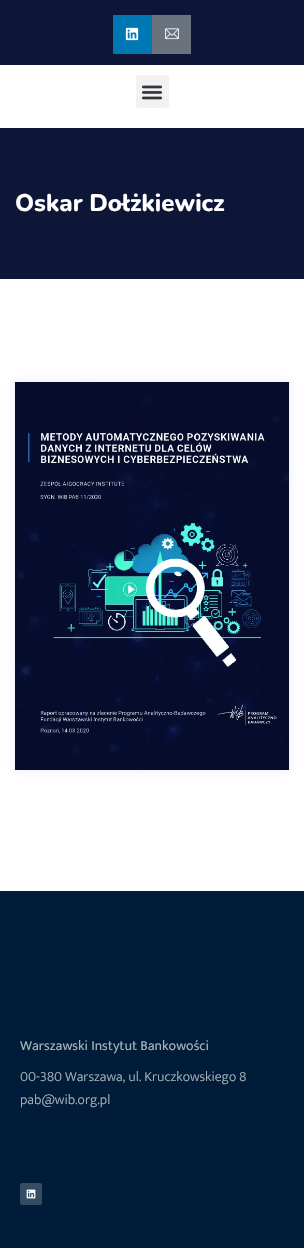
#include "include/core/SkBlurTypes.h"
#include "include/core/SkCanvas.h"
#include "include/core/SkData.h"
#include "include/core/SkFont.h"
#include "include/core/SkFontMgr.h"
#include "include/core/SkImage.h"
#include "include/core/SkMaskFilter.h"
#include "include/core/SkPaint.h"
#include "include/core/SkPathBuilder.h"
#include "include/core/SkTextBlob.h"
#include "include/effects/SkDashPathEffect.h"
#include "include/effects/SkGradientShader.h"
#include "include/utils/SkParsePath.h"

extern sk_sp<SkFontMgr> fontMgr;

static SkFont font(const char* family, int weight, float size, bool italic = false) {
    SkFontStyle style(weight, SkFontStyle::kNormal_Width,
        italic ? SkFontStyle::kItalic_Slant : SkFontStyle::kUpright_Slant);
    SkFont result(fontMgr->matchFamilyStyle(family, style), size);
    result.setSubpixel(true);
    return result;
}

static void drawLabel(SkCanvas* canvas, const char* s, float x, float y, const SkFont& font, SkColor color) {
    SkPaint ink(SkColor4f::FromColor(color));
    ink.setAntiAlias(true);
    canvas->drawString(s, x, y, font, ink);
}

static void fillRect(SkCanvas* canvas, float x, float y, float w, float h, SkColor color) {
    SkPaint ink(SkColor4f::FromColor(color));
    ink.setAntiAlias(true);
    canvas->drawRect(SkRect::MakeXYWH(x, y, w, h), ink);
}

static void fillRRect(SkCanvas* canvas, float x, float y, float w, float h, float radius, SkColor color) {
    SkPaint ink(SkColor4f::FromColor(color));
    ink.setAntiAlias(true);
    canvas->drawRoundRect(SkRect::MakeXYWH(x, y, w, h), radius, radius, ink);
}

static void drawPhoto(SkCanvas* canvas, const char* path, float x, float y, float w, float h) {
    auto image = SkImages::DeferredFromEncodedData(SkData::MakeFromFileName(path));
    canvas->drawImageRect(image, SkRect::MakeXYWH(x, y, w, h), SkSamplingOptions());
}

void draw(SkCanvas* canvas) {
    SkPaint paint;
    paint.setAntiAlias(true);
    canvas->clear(0xFFFFFFFF);
    fillRect(canvas, 0, 0, 304, 65, 0xFF0D1637);
    fillRect(canvas, 113, 15, 39, 39, 0xFF0077B5);
    drawPhoto(canvas, "assets/img1.png", 125, 27, 14, 14);
    fillRect(canvas, 152, 15, 39, 39, 0xFF69727D);
    drawPhoto(canvas, "assets/img2.png", 165, 28, 14, 12);
    fillRRect(canvas, 136, 75, 33, 33, 3, 0xFFF2F2F2);
    drawPhoto(canvas, "assets/img3.png", 141, 85, 22, 15);
    fillRect(canvas, 0, 128, 304, 151, 0xFF0D1637);
    SkFont font1 = font("Nunito", 800, 24);
    drawLabel(canvas, "Oskar Dołżkiewicz", 15, 211, font1, 0xFFFFFFFF);
    paint.setColor(0x339492F5);
    paint.setMaskFilter(SkMaskFilter::MakeBlur(kNormal_SkBlurStyle, 5));
    canvas->drawRect(SkRect::MakeXYWH(15, 382, 274, 388), paint);
    paint.setMaskFilter(nullptr);
    drawPhoto(canvas, "assets/img4.png", 15, 382, 274, 388);
    fillRect(canvas, 0, 891, 304, 357, 0xFF001C38);
    SkFont font2 = font("Mukta", 400, 14);
    drawLabel(canvas, "Warszawski Instytut Bankowości", 20, 1050, font2, 0xFFA6B0B9);
    SkFont font3 = font("Mukta", 300, 14);
    drawLabel(canvas, "00-380 Warszawa, ul. Kruczkowskiego 8", 20, 1081, font3, 0xFFA6B0B9);
    drawLabel(canvas, "pab@wib.org.pl", 20, 1104, font3, 0xFFA6B0B9);
    fillRRect(canvas, 20, 1183, 22, 22, 2, 0xFF364C62);
    drawPhoto(canvas, "assets/img5.png", 26, 1189, 10, 10);
}
